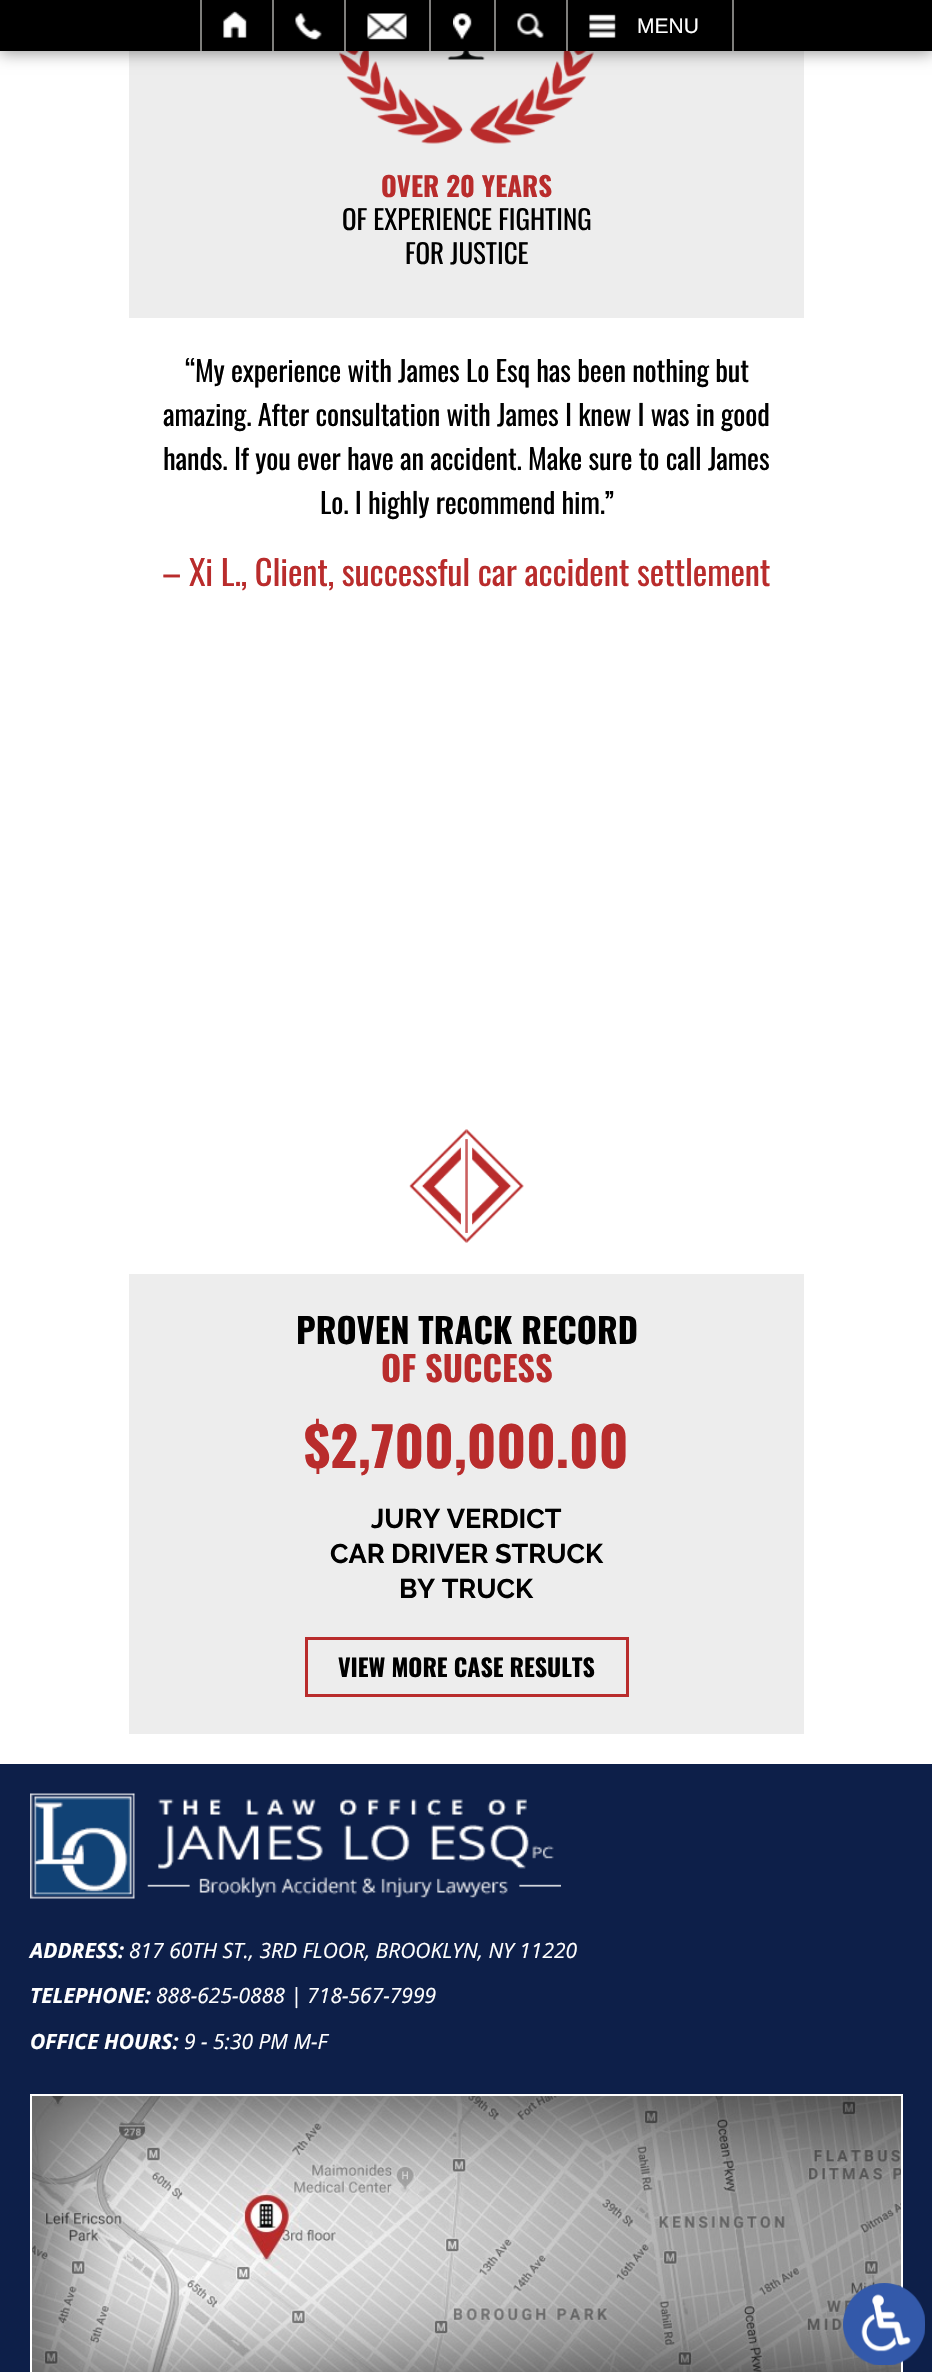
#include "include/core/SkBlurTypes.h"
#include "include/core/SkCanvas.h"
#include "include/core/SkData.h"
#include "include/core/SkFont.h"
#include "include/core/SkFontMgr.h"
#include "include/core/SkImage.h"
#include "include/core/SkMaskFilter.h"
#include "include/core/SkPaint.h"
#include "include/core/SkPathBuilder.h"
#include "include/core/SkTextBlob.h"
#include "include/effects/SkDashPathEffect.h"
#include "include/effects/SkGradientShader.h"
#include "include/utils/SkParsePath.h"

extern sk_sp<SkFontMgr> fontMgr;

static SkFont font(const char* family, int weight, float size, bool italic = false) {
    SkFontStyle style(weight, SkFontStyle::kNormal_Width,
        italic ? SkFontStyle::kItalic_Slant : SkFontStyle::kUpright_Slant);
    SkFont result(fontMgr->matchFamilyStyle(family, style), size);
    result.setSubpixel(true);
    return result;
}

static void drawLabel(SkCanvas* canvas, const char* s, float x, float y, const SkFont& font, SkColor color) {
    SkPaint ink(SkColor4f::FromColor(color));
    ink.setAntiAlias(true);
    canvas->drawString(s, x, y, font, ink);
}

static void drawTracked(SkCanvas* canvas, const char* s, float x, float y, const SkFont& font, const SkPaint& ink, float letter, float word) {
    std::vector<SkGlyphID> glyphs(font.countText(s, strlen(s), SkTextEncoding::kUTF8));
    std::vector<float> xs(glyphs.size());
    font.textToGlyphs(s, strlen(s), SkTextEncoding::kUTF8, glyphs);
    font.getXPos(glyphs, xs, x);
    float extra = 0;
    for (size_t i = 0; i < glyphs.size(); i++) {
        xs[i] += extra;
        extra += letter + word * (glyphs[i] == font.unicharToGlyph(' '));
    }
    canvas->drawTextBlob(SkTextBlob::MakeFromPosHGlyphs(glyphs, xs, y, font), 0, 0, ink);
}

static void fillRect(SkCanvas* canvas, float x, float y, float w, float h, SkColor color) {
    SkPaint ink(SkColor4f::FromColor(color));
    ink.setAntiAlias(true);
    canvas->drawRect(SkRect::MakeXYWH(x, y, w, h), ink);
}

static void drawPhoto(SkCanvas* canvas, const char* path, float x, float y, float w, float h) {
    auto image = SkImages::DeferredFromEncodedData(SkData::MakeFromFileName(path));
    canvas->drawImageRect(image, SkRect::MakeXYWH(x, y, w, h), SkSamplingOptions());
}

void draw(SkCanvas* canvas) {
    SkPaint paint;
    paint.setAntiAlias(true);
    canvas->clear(0xFFFFFFFF);
    fillRect(canvas, 129, 51, 675, 267, 0xFFEDEDED);
    drawPhoto(canvas, "assets/img7.png", 339, 51, 255, 93);
    drawPhoto(canvas, "assets/img8.png", 447, 51, 38, 9);
    paint.setColor(0x66000000);
    paint.setMaskFilter(SkMaskFilter::MakeBlur(kNormal_SkBlurStyle, 7.5f));
    canvas->drawRect(SkRect::MakeXYWH(0, 2, 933, 51), paint);
    paint.setMaskFilter(nullptr);
    fillRect(canvas, 0, 0, 932, 51, 0xFF000000);
    fillRect(canvas, 272, 0, 2, 51, 0xFF7F7E7C);
    fillRect(canvas, 200, 0, 2, 51, 0xFF7F7E7C);
    drawPhoto(canvas, "assets/img1.png", 223, 11, 24, 27);
    fillRect(canvas, 344, 0, 2, 51, 0xFF7F7E7C);
    drawPhoto(canvas, "assets/img2.png", 295, 13, 27, 27);
    fillRect(canvas, 429, 0, 2, 51, 0xFF7F7E7C);
    drawPhoto(canvas, "assets/img3.png", 367, 13, 40, 27);
    fillRect(canvas, 494, 0, 2, 51, 0xFF7F7E7C);
    drawPhoto(canvas, "assets/img4.png", 453, 13, 19, 27);
    fillRect(canvas, 566, 0, 2, 51, 0xFF7F7E7C);
    drawPhoto(canvas, "assets/img5.png", 517, 13, 27, 25);
    fillRect(canvas, 732, 0, 2, 51, 0xFF7F7E7C);
    drawPhoto(canvas, "assets/img6.png", 589, 14, 27, 24);
    SkFont font1 = font("Liberation Sans", 400, 21);
    drawLabel(canvas, "MENU", 637, 33, font1, 0xFFFFFFFF);
    SkFont font2 = font("Oswald", 700, 27);
    drawLabel(canvas, "OVER 20 YEARS", 381, 197, font2, 0xFFB92C2C);
    SkFont font3 = font("Oswald", 400, 27);
    drawLabel(canvas, "OF EXPERIENCE FIGHTING", 342, 230, font3, 0xFF000000);
    drawLabel(canvas, "FOR JUSTICE", 405, 264, font3, 0xFF000000);
    SkFont font4 = font("Oswald", 400, 28.5f);
    paint.setColor(0xFF000000);
    drawTracked(canvas, "“My experience with James Lo Esq has been nothing but", 185, 382, font4, paint, -0.15f, 0);
    drawTracked(canvas, "amazing. After consultation with James I knew I was in good", 163, 426, font4, paint, -0.15f, 0);
    drawTracked(canvas, "hands. If you ever have an accident. Make sure to call James", 163, 470, font4, paint, -0.15f, 0);
    drawTracked(canvas, "Lo. I highly recommend him.”", 320, 514, font4, paint, -0.15f, 0);
    SkFont font5 = font("Oswald", 400, 34.5f);
    paint.setColor(0xFFB92C2C);
    drawTracked(canvas, "– Xi L., Client, successful car accident settlement", 162, 586, font5, paint, -0.15f, 0);
    drawPhoto(canvas, "assets/img9.png", 409, 1129, 58, 114);
    drawPhoto(canvas, "assets/img10.png", 466, 1129, 58, 114);
    fillRect(canvas, 129, 1274, 675, 460, 0xFFEDEDED);
    SkFont font6 = font("Oswald", 700, 34.5f);
    drawLabel(canvas, "PROVEN TRACK RECORD", 296, 1344, font6, 0xFF000000);
    drawLabel(canvas, "OF SUCCESS", 381, 1382, font6, 0xFFB92C2C);
    SkFont font7 = font("Oswald", 700, 54);
    drawLabel(canvas, "$2,700,000.00", 304, 1468, font7, 0xFFB92C2C);
    SkFont font8 = font("Raleway", 700, 27);
    drawLabel(canvas, "JURY VERDICT", 371, 1528, font8, 0xFF000000);
    drawLabel(canvas, "CAR DRIVER STRUCK", 330, 1563, font8, 0xFF000000);
    drawLabel(canvas, "BY TRUCK", 399, 1598, font8, 0xFF000000);
    paint.setStroke(true);
    paint.setStrokeWidth(3);
    canvas->drawRect(SkRect::MakeXYWH(306.5f, 1638.5f, 321, 57), paint);
    SkFont font9 = font("Oswald", 700, 24);
    drawLabel(canvas, "VIEW MORE CASE RESULTS", 338, 1677, font9, 0xFF000000);
    fillRect(canvas, 0, 1764, 932, 608, 0xFF0D1F49);
    drawPhoto(canvas, "assets/img11.png", 30, 1793, 531, 106);
    SkFont font10 = font("Open Sans", 700, 21, true);
    drawLabel(canvas, "ADDRESS:", 30, 1958, font10, 0xFFFFFFFF);
    SkFont font11 = font("Open Sans", 400, 21, true);
    drawLabel(canvas, "817 60TH ST., 3RD FLOOR, BROOKLYN, NY 11220", 129, 1958, font11, 0xFFFFFFFF);
    drawLabel(canvas, "TELEPHONE:", 30, 2003, font10, 0xFFFFFFFF);
    drawLabel(canvas, "888-625-0888 | 718-567-7999", 156, 2003, font11, 0xFFFFFFFF);
    drawLabel(canvas, "OFFICE HOURS:", 30, 2049, font10, 0xFFFFFFFF);
    drawLabel(canvas, "9 - 5:30 PM M-F", 184, 2049, font11, 0xFFFFFFFF);
    drawPhoto(canvas, "assets/img12.png", 32, 2096, 869, 276);
    paint.setStrokeWidth(2);
    paint.setColor(0xFFFFFFFF);
    canvas->drawRect(SkRect::MakeXYWH(31, 2095, 871, 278), paint);
    drawPhoto(canvas, "assets/img13.png", 843, 2283, 82, 82);
}
